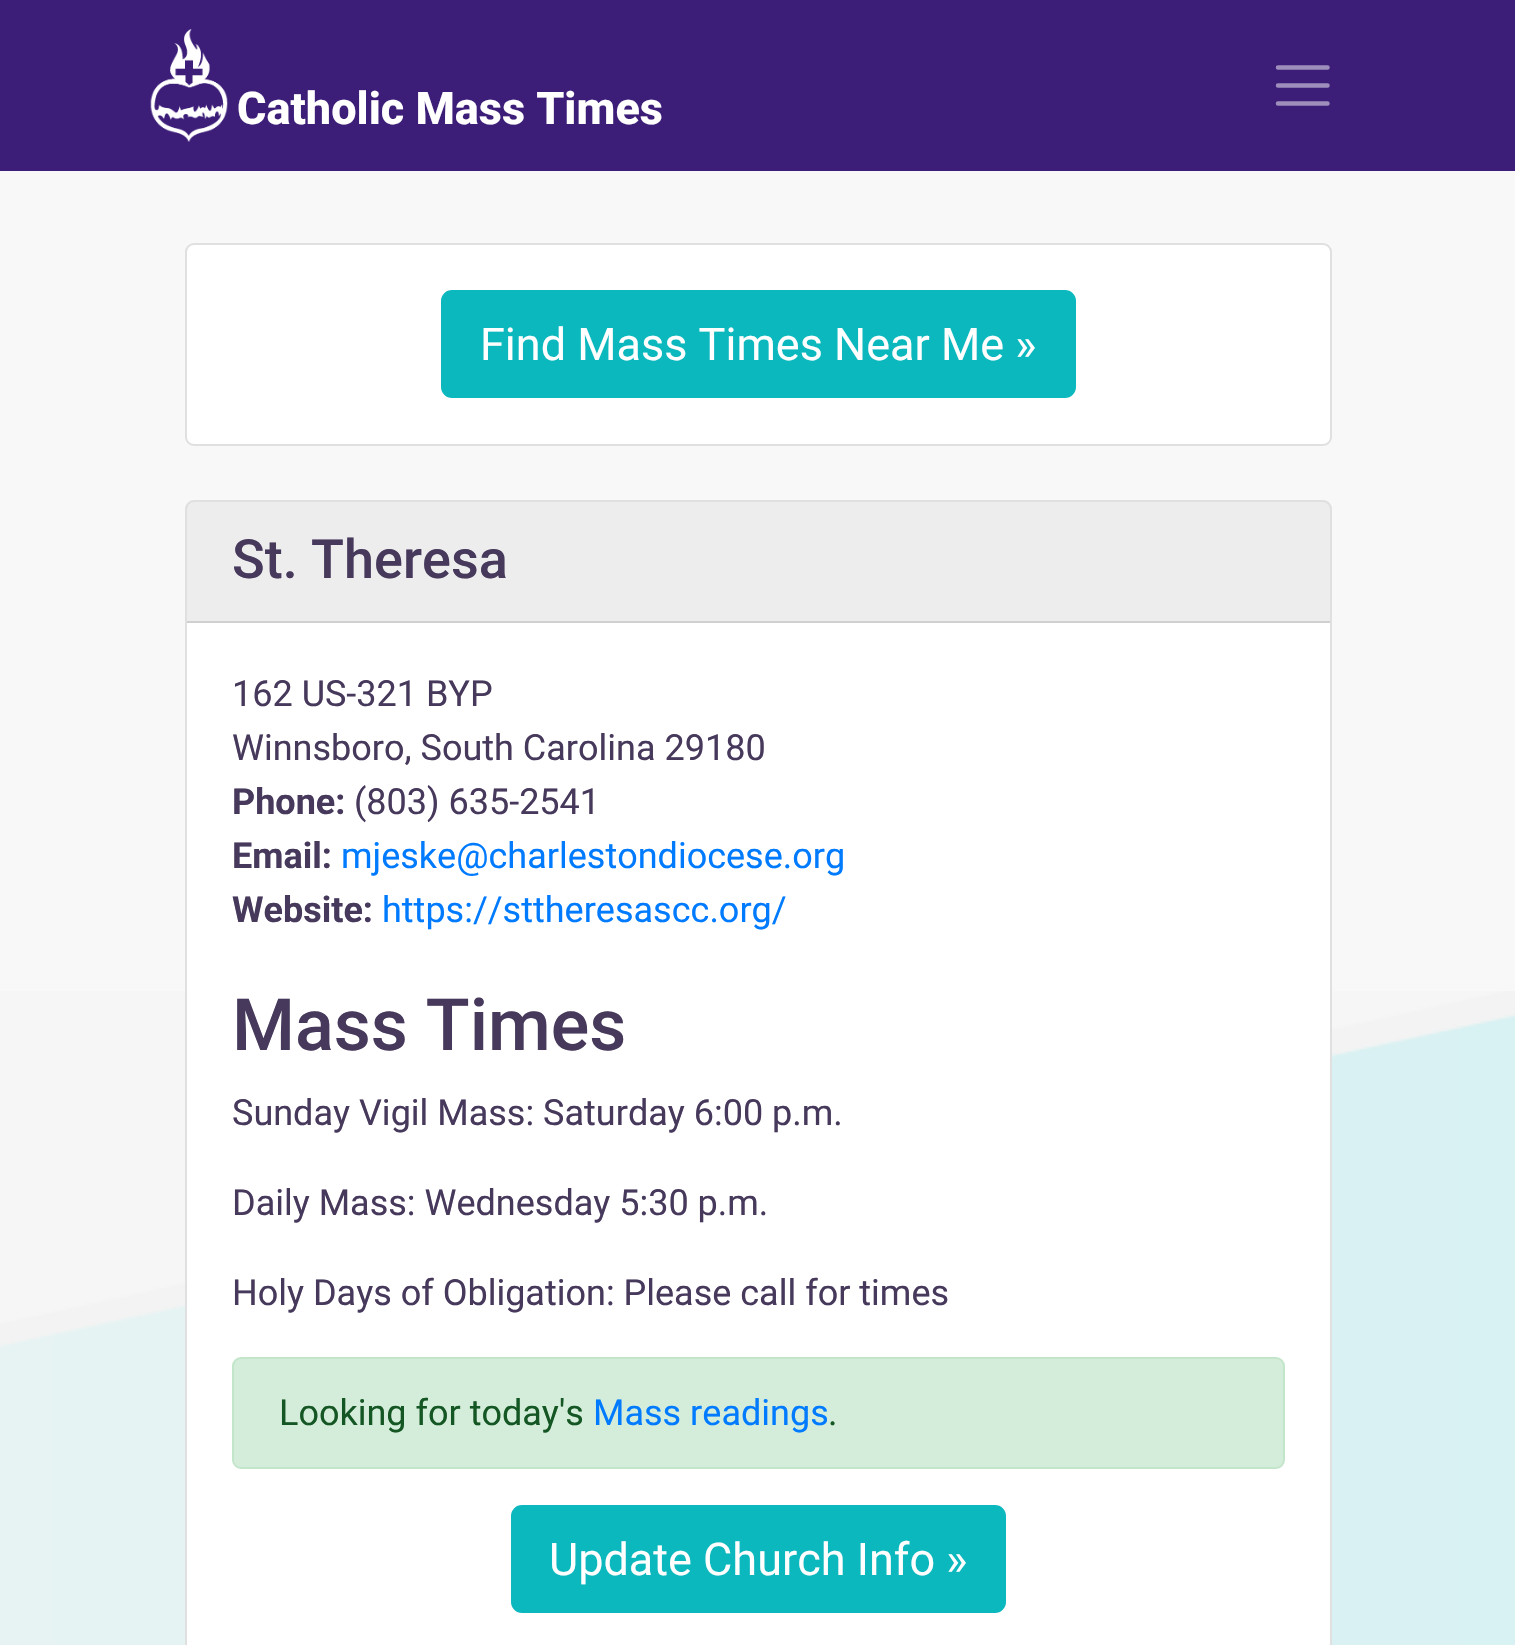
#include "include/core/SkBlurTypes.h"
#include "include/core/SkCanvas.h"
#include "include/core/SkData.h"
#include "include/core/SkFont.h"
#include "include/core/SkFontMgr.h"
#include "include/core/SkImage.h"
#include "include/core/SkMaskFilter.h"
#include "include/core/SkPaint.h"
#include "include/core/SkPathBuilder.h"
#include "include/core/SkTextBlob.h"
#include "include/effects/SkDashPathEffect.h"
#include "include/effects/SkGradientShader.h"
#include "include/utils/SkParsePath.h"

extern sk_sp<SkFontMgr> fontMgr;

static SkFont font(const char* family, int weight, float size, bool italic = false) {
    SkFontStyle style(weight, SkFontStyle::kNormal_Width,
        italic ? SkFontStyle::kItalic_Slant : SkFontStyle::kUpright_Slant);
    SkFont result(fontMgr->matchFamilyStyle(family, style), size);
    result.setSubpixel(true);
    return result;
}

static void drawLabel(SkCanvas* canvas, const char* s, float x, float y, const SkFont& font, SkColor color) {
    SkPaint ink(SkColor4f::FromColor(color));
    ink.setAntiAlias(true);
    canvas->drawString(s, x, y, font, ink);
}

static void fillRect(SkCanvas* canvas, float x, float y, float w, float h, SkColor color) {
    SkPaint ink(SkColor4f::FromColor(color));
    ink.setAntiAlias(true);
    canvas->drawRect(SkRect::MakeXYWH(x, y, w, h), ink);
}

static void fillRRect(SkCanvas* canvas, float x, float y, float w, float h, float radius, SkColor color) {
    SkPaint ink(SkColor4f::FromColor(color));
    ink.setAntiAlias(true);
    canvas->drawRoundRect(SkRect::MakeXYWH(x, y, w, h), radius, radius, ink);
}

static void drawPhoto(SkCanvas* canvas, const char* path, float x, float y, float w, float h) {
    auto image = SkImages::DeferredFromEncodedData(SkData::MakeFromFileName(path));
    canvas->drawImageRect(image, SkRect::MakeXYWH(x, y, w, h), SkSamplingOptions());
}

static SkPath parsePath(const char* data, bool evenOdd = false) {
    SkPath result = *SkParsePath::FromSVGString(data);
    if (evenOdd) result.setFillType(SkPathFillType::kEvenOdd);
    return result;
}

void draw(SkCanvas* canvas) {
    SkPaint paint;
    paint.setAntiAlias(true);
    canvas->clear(0xFFF8F8F8);
    drawPhoto(canvas, "assets/img1.png", 0, 991, 1515, 654);
    fillRect(canvas, 0, 0, 1515, 171, 0xFF3C1D78);
    drawPhoto(canvas, "assets/img2.png", 150, 29, 78, 113);
    SkFont font1 = font("Roboto", 800, 45);
    drawLabel(canvas, "Catholic Mass Times", 237, 124, font1, 0xFFFFFFFF);
    paint.setStroke(true);
    paint.setStrokeWidth(4.5f);
    paint.setStrokeCap(SkPaint::kRound_Cap);
    paint.setColor(0xFF9E8EBC);
    canvas->drawPath(parsePath("M1278 67.5H1327.5M1278 85.5H1327.5M1278 103.5H1327.5"), paint);
    fillRRect(canvas, 185, 243, 1147, 203, 9, 0xFFFFFFFF);
    paint.setStrokeWidth(2);
    paint.setStrokeCap(SkPaint::kButt_Cap);
    paint.setColor(0x1F000000);
    canvas->drawRoundRect(SkRect::MakeXYWH(186, 244, 1145, 201), 8, 8, paint);
    paint.setStroke(false);
    paint.setColor(0xFF0BB8BE);
    canvas->drawRoundRect(SkRect::MakeXYWH(442, 291, 633, 106), 10, 10, paint);
    paint.setStroke(true);
    canvas->drawRoundRect(SkRect::MakeXYWH(442, 291, 633, 106), 10, 10, paint);
    SkFont font2 = font("Roboto", 400, 45);
    drawLabel(canvas, "Find Mass Times Near Me »", 480, 360, font2, 0xFFFFFFFF);
    fillRRect(canvas, 185, 500, 1147, 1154, 9, 0xFFFFFFFF);
    paint.setColor(0x1F000000);
    canvas->drawRoundRect(SkRect::MakeXYWH(186, 501, 1145, 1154), 8, 8, paint);
    paint.setStroke(false);
    paint.setColor(0x12000000);
    canvas->drawPath(parsePath("M194 502H1323C1327 502 1330 505 1330 509V623H187V509C187 505 190 502 194 502Z"), paint);
    fillRect(canvas, 187, 621, 1143, 2, 0xFFD0D0D0);
    SkFont font3 = font("Roboto", 500, 54);
    drawLabel(canvas, "St. Theresa", 232, 578, font3, 0xFF46395B);
    SkFont font4 = font("Roboto", 400, 36);
    drawLabel(canvas, "162 US-321 BYP", 232, 706, font4, 0xFF46395B);
    drawLabel(canvas, "Winnsboro, South Carolina 29180", 232, 760, font4, 0xFF46395B);
    SkFont font5 = font("Roboto", 700, 36);
    drawLabel(canvas, "Phone:", 232, 814, font5, 0xFF46395B);
    drawLabel(canvas, "(803) 635-2541", 354, 814, font4, 0xFF46395B);
    drawLabel(canvas, "Email:", 232, 868, font5, 0xFF46395B);
    drawLabel(canvas, "mjeske@charlestondiocese.org", 341, 868, font4, 0xFF007BFF);
    drawLabel(canvas, "Website:", 232, 922, font5, 0xFF46395B);
    drawLabel(canvas, "https://sttheresascc.org/", 382, 922, font4, 0xFF007BFF);
    SkFont font6 = font("Roboto", 500, 72);
    drawLabel(canvas, "Mass Times", 232, 1050, font6, 0xFF46395B);
    drawLabel(canvas, "Sunday Vigil Mass: Saturday 6:00 p.m.", 232, 1125, font4, 0xFF46395B);
    drawLabel(canvas, "Daily Mass: Wednesday 5:30 p.m.", 232, 1215, font4, 0xFF46395B);
    drawLabel(canvas, "Holy Days of Obligation: Please call for times", 232, 1305, font4, 0xFF46395B);
    paint.setColor(0xFFD4EDDA);
    canvas->drawRoundRect(SkRect::MakeXYWH(233, 1358, 1051, 110), 8, 8, paint);
    paint.setStroke(true);
    paint.setColor(0xFFC3E6CB);
    canvas->drawRoundRect(SkRect::MakeXYWH(233, 1358, 1051, 110), 8, 8, paint);
    drawLabel(canvas, "Looking for today's", 279, 1425, font4, 0xFF155724);
    drawLabel(canvas, "Mass readings", 593, 1425, font4, 0xFF007BFF);
    drawLabel(canvas, ".", 828, 1425, font4, 0xFF155724);
    paint.setStroke(false);
    paint.setColor(0xFF0BB8BE);
    canvas->drawRoundRect(SkRect::MakeXYWH(512, 1506, 493, 106), 10, 10, paint);
    paint.setStroke(true);
    canvas->drawRoundRect(SkRect::MakeXYWH(512, 1506, 493, 106), 10, 10, paint);
    drawLabel(canvas, "Update Church Info »", 549, 1575, font2, 0xFFFFFFFF);
}
